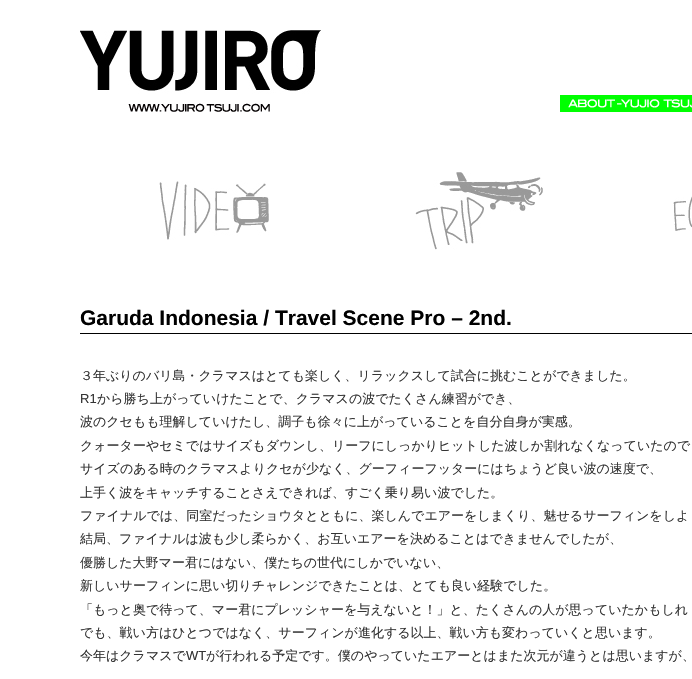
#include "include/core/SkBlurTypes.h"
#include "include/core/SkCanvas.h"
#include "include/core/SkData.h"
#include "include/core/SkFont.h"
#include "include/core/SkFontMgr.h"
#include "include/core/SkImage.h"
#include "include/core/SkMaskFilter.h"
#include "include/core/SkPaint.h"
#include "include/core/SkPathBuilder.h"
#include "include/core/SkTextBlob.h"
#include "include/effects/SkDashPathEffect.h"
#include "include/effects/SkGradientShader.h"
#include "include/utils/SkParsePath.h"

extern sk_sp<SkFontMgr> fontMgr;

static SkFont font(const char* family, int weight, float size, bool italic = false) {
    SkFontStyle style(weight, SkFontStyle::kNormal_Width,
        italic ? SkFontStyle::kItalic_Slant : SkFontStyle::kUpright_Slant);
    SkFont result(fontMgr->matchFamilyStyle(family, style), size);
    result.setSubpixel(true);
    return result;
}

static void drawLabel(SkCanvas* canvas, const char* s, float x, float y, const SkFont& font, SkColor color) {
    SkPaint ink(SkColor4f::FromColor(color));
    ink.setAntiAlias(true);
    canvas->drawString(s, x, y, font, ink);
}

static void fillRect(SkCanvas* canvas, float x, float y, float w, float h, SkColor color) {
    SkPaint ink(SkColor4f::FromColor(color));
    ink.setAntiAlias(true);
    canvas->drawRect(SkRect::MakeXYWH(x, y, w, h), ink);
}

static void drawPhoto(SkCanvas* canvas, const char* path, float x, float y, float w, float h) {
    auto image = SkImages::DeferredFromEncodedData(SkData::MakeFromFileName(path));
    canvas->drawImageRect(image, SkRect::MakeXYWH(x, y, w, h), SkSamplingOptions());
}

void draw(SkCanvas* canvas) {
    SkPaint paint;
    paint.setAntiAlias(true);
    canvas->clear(0xFFFFFFFF);
    drawPhoto(canvas, "assets/img1.png", 80, 30, 241, 82);
    drawPhoto(canvas, "assets/img2.png", 560, 95, 132, 17);
    drawPhoto(canvas, "assets/img3.png", 159, 181, 110, 59);
    drawPhoto(canvas, "assets/img4.png", 415, 172, 128, 78);
    drawPhoto(canvas, "assets/img5.png", 673, 196, 19, 35);
    fillRect(canvas, 80, 333, 612, 1, 0xFF000000);
    SkFont font1 = font("Liberation Sans", 700, 21);
    drawLabel(canvas, "Garuda Indonesia / Travel Scene Pro – 2nd.", 80, 325, font1, 0xFF000000);
    SkFont font2 = font("WenQuanYi Zen Hei", 500, 13);
    drawLabel(canvas, "３年ぶりのバリ島・クラマスはとても楽しく、リラックスして試合に挑むことができました。", 80, 380, font2, 0xFF333333);
    SkFont font3 = font("Liberation Sans", 400, 13);
    drawLabel(canvas, "R1", 80, 403, font3, 0xFF333333);
    drawLabel(canvas, "から勝ち上がっていけたことで、クラマスの波でたくさん練習ができ、", 97, 403, font2, 0xFF333333);
    drawLabel(canvas, "波のクセもも理解していけたし、調子も徐々に上がっていることを自分自身が実感。", 80, 426, font2, 0xFF333333);
    drawLabel(canvas, "クォーターやセミではサイズもダウンし、リーフにしっかりヒットした波しか割れなくなっていたので", 80, 450, font2, 0xFF333333);
    drawLabel(canvas, "サイズのある時のクラマスよりクセが少なく、グーフィーフッターにはちょうど良い波の速度で、", 80, 473, font2, 0xFF333333);
    drawLabel(canvas, "上手く波をキャッチすることさえできれば、すごく乗り易い波でした。", 80, 497, font2, 0xFF333333);
    drawLabel(canvas, "ファイナルでは、同室だったショウタとともに、楽しんでエアーをしまくり、魅せるサーフィンをしよ", 80, 520, font2, 0xFF333333);
    drawLabel(canvas, "結局、ファイナルは波も少し柔らかく、お互いエアーを決めることはできませんでしたが、", 80, 543, font2, 0xFF333333);
    drawLabel(canvas, "優勝した大野マー君にはない、僕たちの世代にしかでいない、", 80, 567, font2, 0xFF333333);
    drawLabel(canvas, "新しいサーフィンに思い切りチャレンジできたことは、とても良い経験でした。", 80, 590, font2, 0xFF333333);
    drawLabel(canvas, "「もっと奥で待って、マー君にプレッシャーを与えないと！」と、たくさんの人が思っていたかもしれ", 80, 614, font2, 0xFF333333);
    drawLabel(canvas, "でも、戦い方はひとつではなく、サーフィンが進化する以上、戦い方も変わっていくと思います。", 80, 637, font2, 0xFF333333);
    drawLabel(canvas, "今年はクラマスで", 80, 660, font2, 0xFF333333);
    drawLabel(canvas, "WT", 186, 660, font3, 0xFF333333);
    drawLabel(canvas, "が行われる予定です。僕のやっていたエアーとはまた次元が違うとは思いますが、", 206, 660, font2, 0xFF333333);
}
